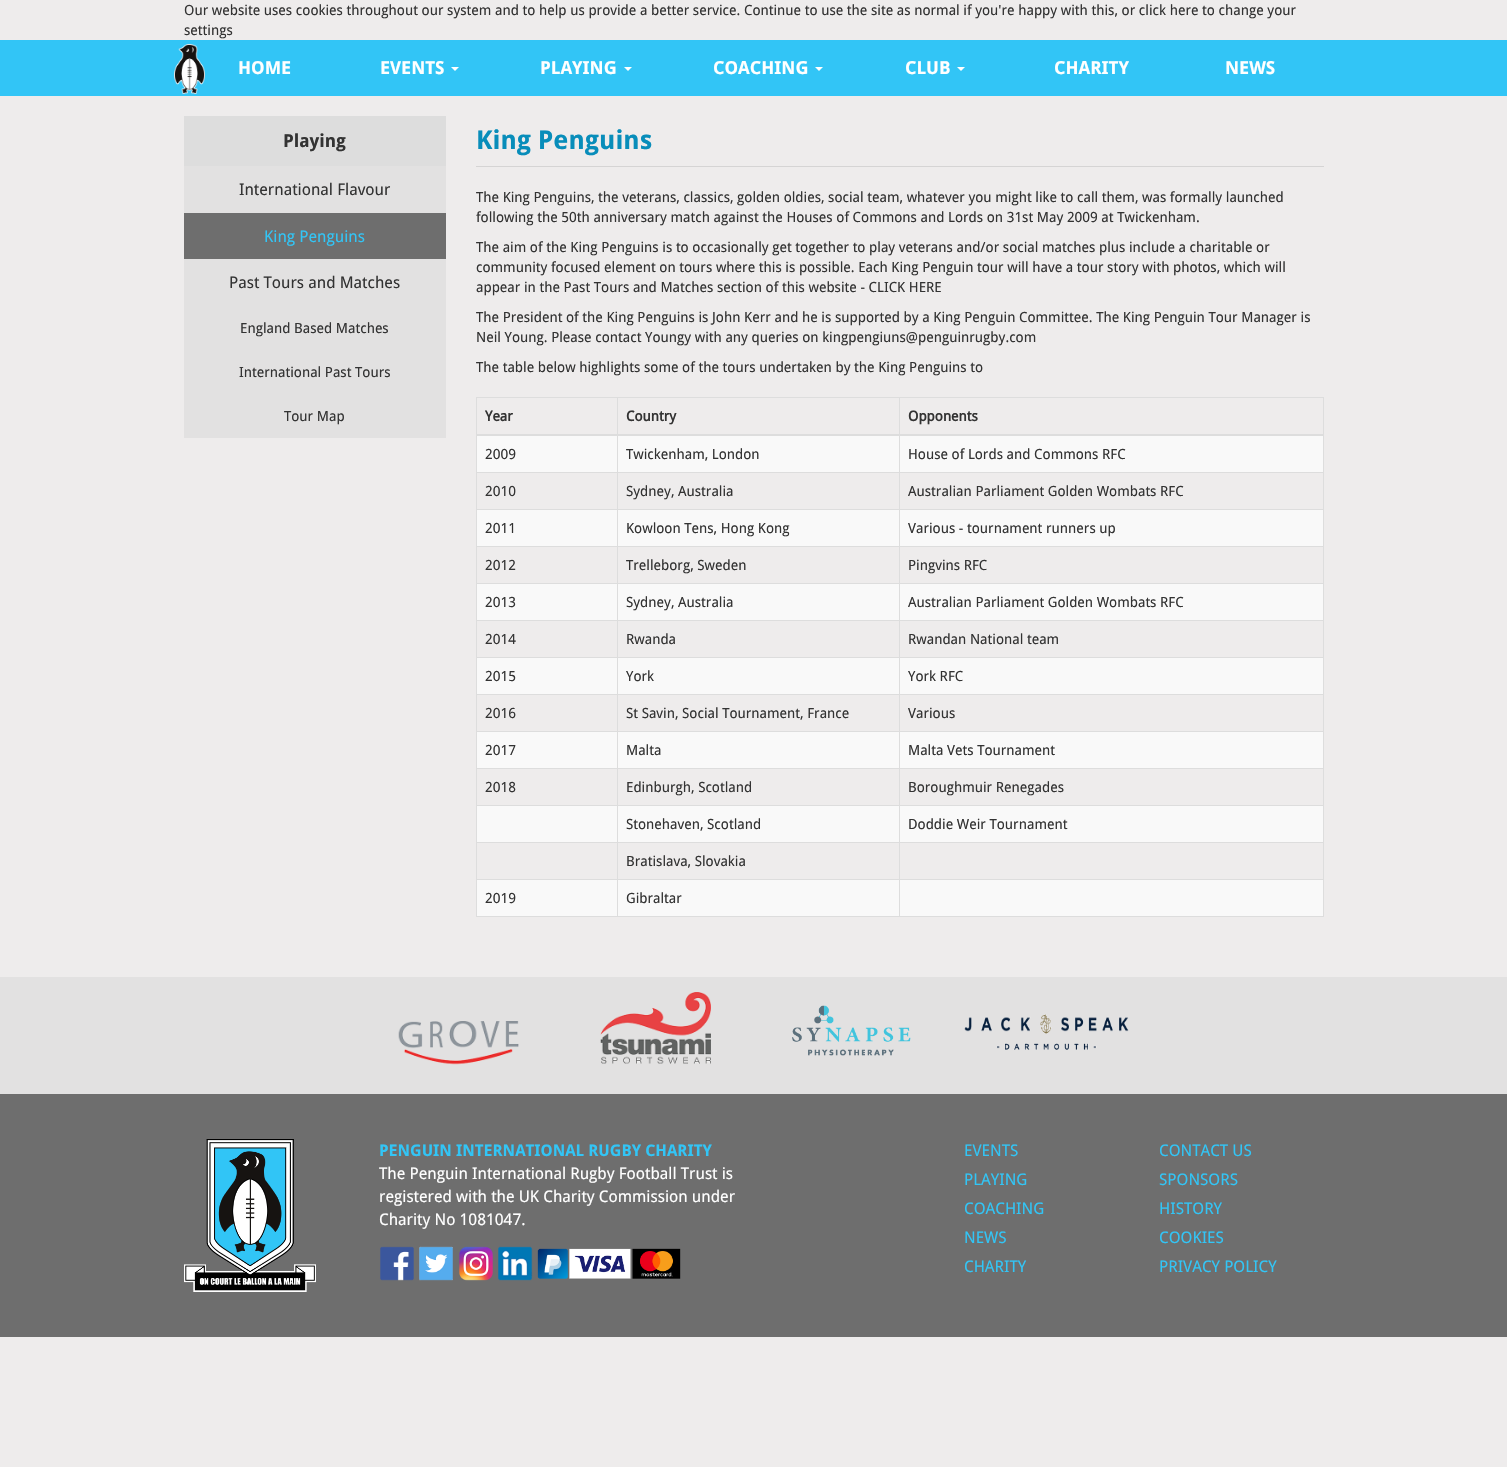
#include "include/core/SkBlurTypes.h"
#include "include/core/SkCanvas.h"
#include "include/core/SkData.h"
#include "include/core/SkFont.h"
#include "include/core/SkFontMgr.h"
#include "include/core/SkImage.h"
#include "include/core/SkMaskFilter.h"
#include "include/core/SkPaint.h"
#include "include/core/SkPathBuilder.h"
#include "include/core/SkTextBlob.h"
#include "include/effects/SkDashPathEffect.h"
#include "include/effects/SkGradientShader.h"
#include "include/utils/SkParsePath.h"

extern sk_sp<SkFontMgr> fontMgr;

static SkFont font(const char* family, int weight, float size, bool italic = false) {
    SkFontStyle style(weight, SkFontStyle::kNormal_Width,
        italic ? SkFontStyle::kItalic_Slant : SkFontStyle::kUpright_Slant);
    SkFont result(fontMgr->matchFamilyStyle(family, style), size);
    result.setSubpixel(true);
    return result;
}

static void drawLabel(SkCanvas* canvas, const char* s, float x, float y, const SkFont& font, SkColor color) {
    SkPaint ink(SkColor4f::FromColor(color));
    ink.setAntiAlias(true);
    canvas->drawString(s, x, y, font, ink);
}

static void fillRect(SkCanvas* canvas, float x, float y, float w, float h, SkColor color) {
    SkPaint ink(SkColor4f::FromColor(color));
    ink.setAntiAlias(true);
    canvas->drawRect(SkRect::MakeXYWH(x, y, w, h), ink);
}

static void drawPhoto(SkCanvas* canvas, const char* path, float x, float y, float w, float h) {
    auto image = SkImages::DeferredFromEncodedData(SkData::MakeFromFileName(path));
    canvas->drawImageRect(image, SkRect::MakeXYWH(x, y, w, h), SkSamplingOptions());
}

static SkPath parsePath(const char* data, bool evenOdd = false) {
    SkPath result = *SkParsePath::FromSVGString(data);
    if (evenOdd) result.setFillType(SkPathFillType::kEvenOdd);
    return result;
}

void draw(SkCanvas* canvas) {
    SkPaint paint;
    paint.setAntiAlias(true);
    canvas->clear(0xFFEEECEC);
    SkFont font1 = font("Droid Sans", 400, 14);
    drawLabel(canvas, "Our website uses cookies throughout our system and to help us provide a better service. Continue to use the site as normal if you're happy with this, or click here to change your", 184, 15, font1, 0xFF333333);
    drawLabel(canvas, "settings", 184, 35, font1, 0xFF333333);
    fillRect(canvas, 0, 40, 1507, 56, 0xFF32C5F6);
    drawPhoto(canvas, "assets/img1.png", 174, 44, 31, 50);
    SkFont font2 = font("Droid Sans", 700, 18);
    drawLabel(canvas, "HOME", 238, 74, font2, 0xFFFFFFFF);
    drawLabel(canvas, "EVENTS", 380, 74, font2, 0xFFFFFFFF);
    paint.setColor(0xFFFFFFFF);
    canvas->drawPath(parsePath("M451 67H459L455 71Z"), paint);
    drawLabel(canvas, "PLAYING", 540, 74, font2, 0xFFFFFFFF);
    canvas->drawPath(parsePath("M624 67H632L628 71Z"), paint);
    drawLabel(canvas, "COACHING", 713, 74, font2, 0xFFFFFFFF);
    canvas->drawPath(parsePath("M815 67H823L819 71Z"), paint);
    drawLabel(canvas, "CLUB", 905, 74, font2, 0xFFFFFFFF);
    canvas->drawPath(parsePath("M957 67H965L961 71Z"), paint);
    drawLabel(canvas, "CHARITY", 1054, 74, font2, 0xFFFFFFFF);
    drawLabel(canvas, "NEWS", 1225, 74, font2, 0xFFFFFFFF);
    fillRect(canvas, 184, 116, 262, 50, 0xFFDDDDDD);
    drawLabel(canvas, "Playing", 283, 147, font2, 0xFF333333);
    fillRect(canvas, 184, 166, 262, 47, 0xFFE2E1E1);
    SkFont font3 = font("Droid Sans", 400, 16);
    drawLabel(canvas, "International Flavour", 239, 195, font3, 0xFF333333);
    fillRect(canvas, 184, 213, 262, 46, 0xFF6E6E6E);
    drawLabel(canvas, "King Penguins", 264, 242, font3, 0xFF32C5F6);
    fillRect(canvas, 184, 259, 262, 179, 0xFFE2E1E1);
    drawLabel(canvas, "Past Tours and Matches", 229, 288, font3, 0xFF333333);
    drawLabel(canvas, "England Based Matches", 240, 333, font1, 0xFF333333);
    drawLabel(canvas, "International Past Tours", 239, 377, font1, 0xFF333333);
    drawLabel(canvas, "Tour Map", 284, 421, font1, 0xFF333333);
    fillRect(canvas, 476, 166, 848, 1, 0xFFD5D4D4);
    SkFont font4 = font("Droid Sans", 700, 26);
    drawLabel(canvas, "King Penguins", 476, 149, font4, 0xFF088DBA);
    drawLabel(canvas, "The King Penguins, the veterans, classics, golden oldies, social team, whatever you might like to call them, was formally launched", 476, 202, font1, 0xFF333333);
    drawLabel(canvas, "following the 50th anniversary match against the Houses of Commons and Lords on 31st May 2009 at Twickenham.", 476, 222, font1, 0xFF333333);
    drawLabel(canvas, "The aim of the King Penguins is to occasionally get together to play veterans and/or social matches plus include a charitable or", 476, 252, font1, 0xFF333333);
    drawLabel(canvas, "community focused element on tours where this is possible. Each King Penguin tour will have a tour story with photos, which will", 476, 272, font1, 0xFF333333);
    drawLabel(canvas, "appear in the Past Tours and Matches section of this website - CLICK HERE", 476, 292, font1, 0xFF333333);
    drawLabel(canvas, "The President of the King Penguins is John Kerr and he is supported by a King Penguin Committee. The King Penguin Tour Manager is", 476, 322, font1, 0xFF333333);
    drawLabel(canvas, "Neil Young. Please contact Youngy with any queries on kingpengiuns@penguinrugby.com", 476, 342, font1, 0xFF333333);
    drawLabel(canvas, "The table below highlights some of the tours undertaken by the King Penguins to", 476, 372, font1, 0xFF333333);
    fillRect(canvas, 476, 397, 848, 1, 0xFFDDDDDD);
    fillRect(canvas, 1323, 397, 1, 520, 0xFFDDDDDD);
    fillRect(canvas, 476, 916, 848, 1, 0xFFDDDDDD);
    fillRect(canvas, 476, 397, 1, 520, 0xFFDDDDDD);
    SkFont font5 = font("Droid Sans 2", 700, 14);
    drawLabel(canvas, "Year", 485, 421, font5, 0xFF333333);
    drawLabel(canvas, "Country", 626, 421, font5, 0xFF333333);
    fillRect(canvas, 477, 436, 846, 36, 0xFFF9F9F9);
    fillRect(canvas, 899, 472, 425, 1, 0xFFDDDDDD);
    fillRect(canvas, 899, 509, 425, 1, 0xFFDDDDDD);
    fillRect(canvas, 477, 510, 846, 36, 0xFFF9F9F9);
    fillRect(canvas, 899, 546, 425, 1, 0xFFDDDDDD);
    fillRect(canvas, 899, 583, 425, 1, 0xFFDDDDDD);
    fillRect(canvas, 477, 584, 846, 36, 0xFFF9F9F9);
    fillRect(canvas, 899, 620, 425, 1, 0xFFDDDDDD);
    fillRect(canvas, 899, 657, 425, 1, 0xFFDDDDDD);
    fillRect(canvas, 477, 658, 846, 36, 0xFFF9F9F9);
    fillRect(canvas, 899, 694, 425, 1, 0xFFDDDDDD);
    fillRect(canvas, 899, 731, 425, 1, 0xFFDDDDDD);
    fillRect(canvas, 477, 732, 846, 36, 0xFFF9F9F9);
    fillRect(canvas, 899, 768, 425, 1, 0xFFDDDDDD);
    fillRect(canvas, 899, 805, 425, 1, 0xFFDDDDDD);
    fillRect(canvas, 477, 806, 846, 36, 0xFFF9F9F9);
    fillRect(canvas, 899, 842, 425, 1, 0xFFDDDDDD);
    fillRect(canvas, 899, 879, 425, 1, 0xFFDDDDDD);
    fillRect(canvas, 477, 880, 846, 36, 0xFFF9F9F9);
    fillRect(canvas, 899, 879, 1, 38, 0xFFDDDDDD);
    fillRect(canvas, 617, 879, 283, 1, 0xFFDDDDDD);
    fillRect(canvas, 899, 842, 1, 38, 0xFFDDDDDD);
    fillRect(canvas, 617, 842, 283, 1, 0xFFDDDDDD);
    fillRect(canvas, 899, 805, 1, 38, 0xFFDDDDDD);
    fillRect(canvas, 617, 805, 283, 1, 0xFFDDDDDD);
    fillRect(canvas, 899, 768, 1, 38, 0xFFDDDDDD);
    fillRect(canvas, 617, 768, 283, 1, 0xFFDDDDDD);
    fillRect(canvas, 899, 731, 1, 38, 0xFFDDDDDD);
    fillRect(canvas, 617, 731, 283, 1, 0xFFDDDDDD);
    fillRect(canvas, 899, 694, 1, 38, 0xFFDDDDDD);
    fillRect(canvas, 617, 694, 283, 1, 0xFFDDDDDD);
    fillRect(canvas, 899, 657, 1, 38, 0xFFDDDDDD);
    fillRect(canvas, 617, 657, 283, 1, 0xFFDDDDDD);
    fillRect(canvas, 899, 620, 1, 38, 0xFFDDDDDD);
    fillRect(canvas, 617, 620, 283, 1, 0xFFDDDDDD);
    fillRect(canvas, 899, 583, 1, 38, 0xFFDDDDDD);
    fillRect(canvas, 617, 583, 283, 1, 0xFFDDDDDD);
    fillRect(canvas, 899, 546, 1, 38, 0xFFDDDDDD);
    fillRect(canvas, 617, 546, 283, 1, 0xFFDDDDDD);
    fillRect(canvas, 899, 509, 1, 38, 0xFFDDDDDD);
    fillRect(canvas, 617, 509, 283, 1, 0xFFDDDDDD);
    fillRect(canvas, 899, 472, 1, 38, 0xFFDDDDDD);
    fillRect(canvas, 617, 472, 283, 1, 0xFFDDDDDD);
    fillRect(canvas, 617, 879, 1, 38, 0xFFDDDDDD);
    fillRect(canvas, 476, 879, 142, 1, 0xFFDDDDDD);
    fillRect(canvas, 617, 842, 1, 38, 0xFFDDDDDD);
    fillRect(canvas, 476, 842, 142, 1, 0xFFDDDDDD);
    fillRect(canvas, 617, 805, 1, 38, 0xFFDDDDDD);
    fillRect(canvas, 476, 805, 142, 1, 0xFFDDDDDD);
    fillRect(canvas, 617, 768, 1, 38, 0xFFDDDDDD);
    fillRect(canvas, 476, 768, 142, 1, 0xFFDDDDDD);
    fillRect(canvas, 617, 731, 1, 38, 0xFFDDDDDD);
    fillRect(canvas, 476, 731, 142, 1, 0xFFDDDDDD);
    fillRect(canvas, 617, 694, 1, 38, 0xFFDDDDDD);
    fillRect(canvas, 476, 694, 142, 1, 0xFFDDDDDD);
    fillRect(canvas, 617, 657, 1, 38, 0xFFDDDDDD);
    fillRect(canvas, 476, 657, 142, 1, 0xFFDDDDDD);
    fillRect(canvas, 617, 620, 1, 38, 0xFFDDDDDD);
    fillRect(canvas, 476, 620, 142, 1, 0xFFDDDDDD);
    fillRect(canvas, 617, 583, 1, 38, 0xFFDDDDDD);
    fillRect(canvas, 476, 583, 142, 1, 0xFFDDDDDD);
    fillRect(canvas, 617, 546, 1, 38, 0xFFDDDDDD);
    fillRect(canvas, 476, 546, 142, 1, 0xFFDDDDDD);
    fillRect(canvas, 617, 509, 1, 38, 0xFFDDDDDD);
    fillRect(canvas, 476, 509, 142, 1, 0xFFDDDDDD);
    fillRect(canvas, 617, 472, 1, 38, 0xFFDDDDDD);
    fillRect(canvas, 476, 472, 142, 1, 0xFFDDDDDD);
    fillRect(canvas, 617, 397, 1, 76, 0xFFDDDDDD);
    fillRect(canvas, 899, 397, 1, 76, 0xFFDDDDDD);
    fillRect(canvas, 476, 434, 848, 2, 0xFFDDDDDD);
    drawLabel(canvas, "Opponents", 908, 421, font5, 0xFF333333);
    drawLabel(canvas, "2009", 485, 459, font1, 0xFF333333);
    drawLabel(canvas, "Twickenham, London", 626, 459, font1, 0xFF333333);
    drawLabel(canvas, "House of Lords and Commons RFC", 908, 459, font1, 0xFF333333);
    drawLabel(canvas, "2010", 485, 496, font1, 0xFF333333);
    drawLabel(canvas, "Sydney, Australia", 626, 496, font1, 0xFF333333);
    drawLabel(canvas, "Australian Parliament Golden Wombats RFC", 908, 496, font1, 0xFF333333);
    drawLabel(canvas, "2011", 485, 533, font1, 0xFF333333);
    drawLabel(canvas, "Kowloon Tens, Hong Kong", 626, 533, font1, 0xFF333333);
    drawLabel(canvas, "Various - tournament runners up", 908, 533, font1, 0xFF333333);
    drawLabel(canvas, "2012", 485, 570, font1, 0xFF333333);
    drawLabel(canvas, "Trelleborg, Sweden", 626, 570, font1, 0xFF333333);
    drawLabel(canvas, "Pingvins RFC", 908, 570, font1, 0xFF333333);
    drawLabel(canvas, "2013", 485, 607, font1, 0xFF333333);
    drawLabel(canvas, "Sydney, Australia", 626, 607, font1, 0xFF333333);
    drawLabel(canvas, "Australian Parliament Golden Wombats RFC", 908, 607, font1, 0xFF333333);
    drawLabel(canvas, "2014", 485, 644, font1, 0xFF333333);
    drawLabel(canvas, "Rwanda", 626, 644, font1, 0xFF333333);
    drawLabel(canvas, "Rwandan National team", 908, 644, font1, 0xFF333333);
    drawLabel(canvas, "2015", 485, 681, font1, 0xFF333333);
    drawLabel(canvas, "York", 626, 681, font1, 0xFF333333);
    drawLabel(canvas, "York RFC", 908, 681, font1, 0xFF333333);
    drawLabel(canvas, "2016", 485, 718, font1, 0xFF333333);
    drawLabel(canvas, "St Savin, Social Tournament, France", 626, 718, font1, 0xFF333333);
    drawLabel(canvas, "Various", 908, 718, font1, 0xFF333333);
    drawLabel(canvas, "2017", 485, 755, font1, 0xFF333333);
    drawLabel(canvas, "Malta", 626, 755, font1, 0xFF333333);
    drawLabel(canvas, "Malta Vets Tournament", 908, 755, font1, 0xFF333333);
    drawLabel(canvas, "2018", 485, 792, font1, 0xFF333333);
    drawLabel(canvas, "Edinburgh, Scotland", 626, 792, font1, 0xFF333333);
    drawLabel(canvas, "Boroughmuir Renegades", 908, 792, font1, 0xFF333333);
    drawLabel(canvas, "Stonehaven, Scotland", 626, 829, font1, 0xFF333333);
    drawLabel(canvas, "Doddie Weir Tournament", 908, 829, font1, 0xFF333333);
    drawLabel(canvas, "Bratislava, Slovakia", 626, 866, font1, 0xFF333333);
    drawLabel(canvas, "2019", 485, 903, font1, 0xFF333333);
    drawLabel(canvas, "Gibraltar", 626, 903, font1, 0xFF333333);
    fillRect(canvas, 0, 977, 1507, 117, 0xFFE2E1E1);
    drawPhoto(canvas, "assets/img2.png", 398, 1021, 121, 44);
    drawPhoto(canvas, "assets/img3.png", 600, 992, 111, 72);
    drawPhoto(canvas, "assets/img4.png", 792, 1005, 119, 51);
    drawPhoto(canvas, "assets/img5.png", 964, 1014, 165, 36);
    fillRect(canvas, 0, 1094, 1507, 243, 0xFF6E6E6E);
    drawPhoto(canvas, "assets/img6.png", 184, 1139, 132, 153);
    SkFont font6 = font("Droid Sans", 700, 16);
    drawLabel(canvas, "PENGUIN INTERNATIONAL RUGBY CHARITY", 379, 1156, font6, 0xFF32C5F6);
    drawLabel(canvas, "The Penguin International Rugby Football Trust is", 379, 1179, font3, 0xFFFFFFFF);
    drawLabel(canvas, "registered with the UK Charity Commission under", 379, 1202, font3, 0xFFFFFFFF);
    drawLabel(canvas, "Charity No 1081047.", 379, 1225, font3, 0xFFFFFFFF);
    drawPhoto(canvas, "assets/img7.png", 380, 1246, 34, 35);
    drawPhoto(canvas, "assets/img8.png", 419, 1246, 34, 35);
    drawPhoto(canvas, "assets/img9.png", 459, 1246, 34, 35);
    drawPhoto(canvas, "assets/img10.png", 498, 1246, 35, 35);
    drawPhoto(canvas, "assets/img11.png", 537, 1248, 144, 31);
    drawLabel(canvas, "EVENTS", 964, 1156, font3, 0xFF32C5F6);
    drawLabel(canvas, "PLAYING", 964, 1185, font3, 0xFF32C5F6);
    drawLabel(canvas, "COACHING", 964, 1214, font3, 0xFF32C5F6);
    drawLabel(canvas, "NEWS", 964, 1243, font3, 0xFF32C5F6);
    drawLabel(canvas, "CHARITY", 964, 1272, font3, 0xFF32C5F6);
    drawLabel(canvas, "CONTACT US", 1159, 1156, font3, 0xFF32C5F6);
    drawLabel(canvas, "SPONSORS", 1159, 1185, font3, 0xFF32C5F6);
    drawLabel(canvas, "HISTORY", 1159, 1214, font3, 0xFF32C5F6);
    drawLabel(canvas, "COOKIES", 1159, 1243, font3, 0xFF32C5F6);
    drawLabel(canvas, "PRIVACY POLICY", 1159, 1272, font3, 0xFF32C5F6);
}
